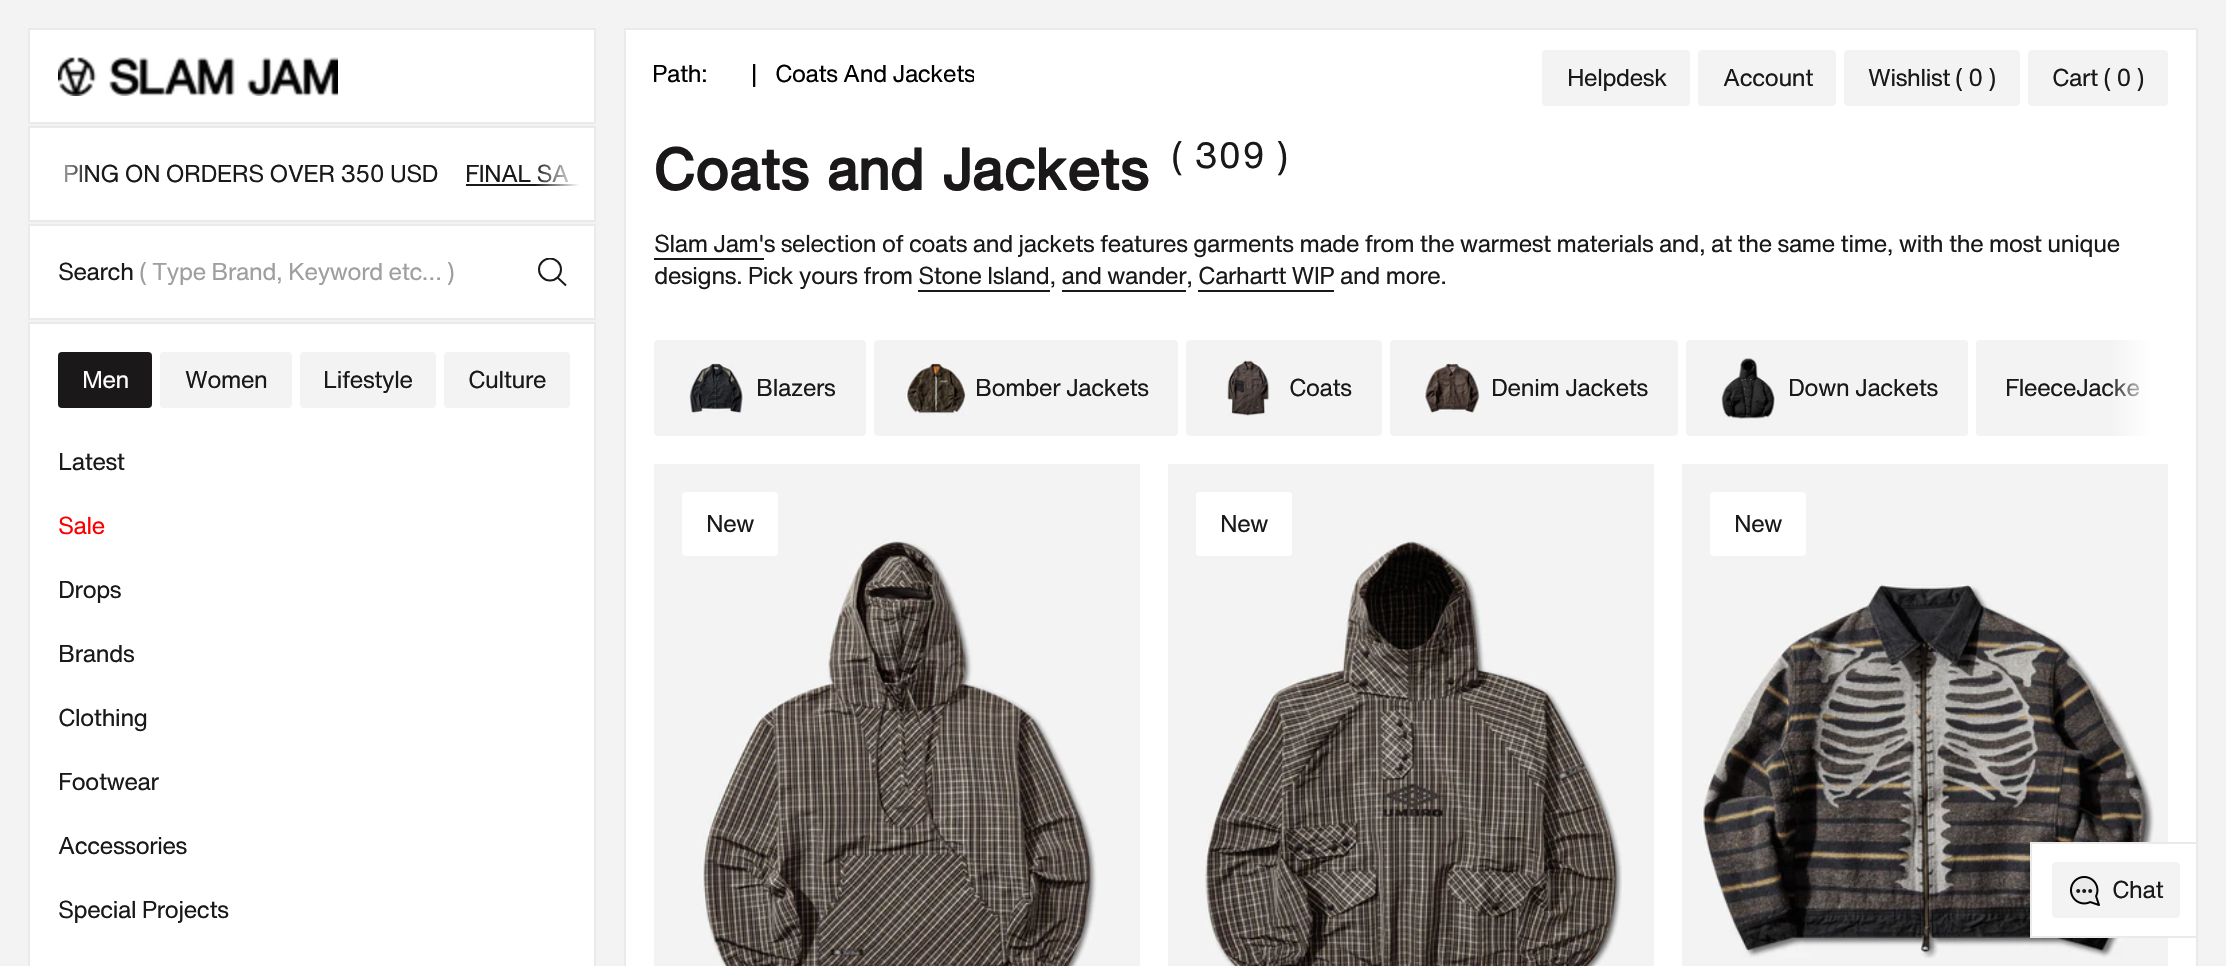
#include "include/core/SkBlurTypes.h"
#include "include/core/SkCanvas.h"
#include "include/core/SkData.h"
#include "include/core/SkFont.h"
#include "include/core/SkFontMgr.h"
#include "include/core/SkImage.h"
#include "include/core/SkMaskFilter.h"
#include "include/core/SkPaint.h"
#include "include/core/SkPathBuilder.h"
#include "include/core/SkTextBlob.h"
#include "include/effects/SkDashPathEffect.h"
#include "include/effects/SkGradientShader.h"
#include "include/utils/SkParsePath.h"

extern sk_sp<SkFontMgr> fontMgr;

static SkFont font(const char* family, int weight, float size, bool italic = false) {
    SkFontStyle style(weight, SkFontStyle::kNormal_Width,
        italic ? SkFontStyle::kItalic_Slant : SkFontStyle::kUpright_Slant);
    SkFont result(fontMgr->matchFamilyStyle(family, style), size);
    result.setSubpixel(true);
    return result;
}

static void drawTracked(SkCanvas* canvas, const char* s, float x, float y, const SkFont& font, const SkPaint& ink, float letter, float word) {
    std::vector<SkGlyphID> glyphs(font.countText(s, strlen(s), SkTextEncoding::kUTF8));
    std::vector<float> xs(glyphs.size());
    font.textToGlyphs(s, strlen(s), SkTextEncoding::kUTF8, glyphs);
    font.getXPos(glyphs, xs, x);
    float extra = 0;
    for (size_t i = 0; i < glyphs.size(); i++) {
        xs[i] += extra;
        extra += letter + word * (glyphs[i] == font.unicharToGlyph(' '));
    }
    canvas->drawTextBlob(SkTextBlob::MakeFromPosHGlyphs(glyphs, xs, y, font), 0, 0, ink);
}

static void fillRect(SkCanvas* canvas, float x, float y, float w, float h, SkColor color) {
    SkPaint ink(SkColor4f::FromColor(color));
    ink.setAntiAlias(true);
    canvas->drawRect(SkRect::MakeXYWH(x, y, w, h), ink);
}

static void fillRRect(SkCanvas* canvas, float x, float y, float w, float h, float radius, SkColor color) {
    SkPaint ink(SkColor4f::FromColor(color));
    ink.setAntiAlias(true);
    canvas->drawRoundRect(SkRect::MakeXYWH(x, y, w, h), radius, radius, ink);
}

static void drawPhoto(SkCanvas* canvas, const char* path, float x, float y, float w, float h) {
    auto image = SkImages::DeferredFromEncodedData(SkData::MakeFromFileName(path));
    canvas->drawImageRect(image, SkRect::MakeXYWH(x, y, w, h), SkSamplingOptions());
}

static SkPath parsePath(const char* data, bool evenOdd = false) {
    SkPath result = *SkParsePath::FromSVGString(data);
    if (evenOdd) result.setFillType(SkPathFillType::kEvenOdd);
    return result;
}

void draw(SkCanvas* canvas) {
    SkPaint paint;
    paint.setAntiAlias(true);
    canvas->clear(0xFFF3F3F3);
    paint.setColor(0xFFFFFFFF);
    canvas->drawRect(SkRect::MakeXYWH(625, 29, 1572, 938), paint);
    paint.setStroke(true);
    paint.setStrokeWidth(2);
    paint.setColor(0xFFEAEAEA);
    canvas->drawRect(SkRect::MakeXYWH(625, 29, 1572, 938), paint);
    SkFont font1 = font("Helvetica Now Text", 400, 24);
    paint.setStroke(false);
    paint.setColor(0xFF000000);
    drawTracked(canvas, "Path:", 652, 82, font1, paint, -0.78f, 0);
    drawTracked(canvas, "|", 751, 82, font1, paint, -0.78f, 0);
    canvas->save();
    canvas->clipRect(SkRect::MakeXYWH(652, 56, 322, 36));
    drawTracked(canvas, "Coats And Jackets", 775, 82, font1, paint, -0.78f, 0);
    canvas->restore();
    SkFont font2 = font("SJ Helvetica", 400, 60);
    paint.setColor(0xFF1A1818);
    drawTracked(canvas, "Coats and Jackets", 654, 190, font2, paint, -0.78f, 0);
    SkFont font3 = font("Helvetica Now Text", 400, 36);
    drawTracked(canvas, "( 309 )", 1171, 168, font3, paint, 0.75f, 0);
    drawTracked(canvas, "Slam Jam's selection of coats and jackets features garments made from the warmest materials and, at the same time, with the most unique", 654, 252, font1, paint, -0.78f, 0);
    fillRect(canvas, 654, 258, 110, 2, 0xFF1A1818);
    drawTracked(canvas, "designs. Pick yours from Stone Island, and wander, Carhartt WIP and more.", 654, 284, font1, paint, -0.78f, 0);
    fillRect(canvas, 918, 290, 132, 2, 0xFF1A1818);
    fillRect(canvas, 1062, 290, 124, 2, 0xFF1A1818);
    fillRect(canvas, 1198, 290, 136, 2, 0xFF1A1818);
    paint.setColor(0xFFF3F3F3);
    canvas->drawPath(parsePath("M1980 340H2168V436H1980C1978 436 1976 434 1976 432V344C1976 342 1978 340 1980 340Z"), paint);
    canvas->save();
    canvas->clipRect(SkRect::MakeXYWH(654, 340, 1514, 96));
    paint.setStroke(true);
    canvas->drawRoundRect(SkRect::MakeXYWH(1977, 341, 212, 94), 3, 3, paint);
    canvas->restore();
    paint.setStroke(false);
    paint.setColor(0xFF1A1818);
    drawTracked(canvas, "FleeceJacke", 2005, 396, font1, paint, -0.78f, 0);
    {
        const SkColor colors[] = {0x00FFFFFF, 0xFFFFFFFF};
        const float stops[] = {0.2f, 0.8f};
        const SkPoint ends[] = {{2094, 388}, {2168, 388}};
        paint.setShader(SkGradientShader::MakeLinear(ends, colors, stops, 2, SkTileMode::kClamp));
        paint.setAlpha(255);
    }
    canvas->drawRect(SkRect::MakeXYWH(2110, 340, 58, 96), paint);
    paint.setShader(nullptr);
    paint.setColor(0xFFF3F3F3);
    canvas->drawRoundRect(SkRect::MakeXYWH(655, 341, 210, 94), 3, 3, paint);
    paint.setStroke(true);
    canvas->drawRoundRect(SkRect::MakeXYWH(655, 341, 210, 94), 3, 3, paint);
    drawPhoto(canvas, "assets/img1.png", 689, 363, 55, 50);
    paint.setStroke(false);
    paint.setColor(0xFF1A1818);
    drawTracked(canvas, "Blazers", 756, 396, font1, paint, -0.78f, 0);
    paint.setColor(0xFFF3F3F3);
    canvas->drawRoundRect(SkRect::MakeXYWH(875, 341, 302, 94), 3, 3, paint);
    paint.setStroke(true);
    canvas->drawRoundRect(SkRect::MakeXYWH(875, 341, 302, 94), 3, 3, paint);
    drawPhoto(canvas, "assets/img2.png", 904, 363, 64, 53);
    paint.setStroke(false);
    paint.setColor(0xFF1A1818);
    drawTracked(canvas, "Bomber Jackets", 975, 396, font1, paint, -0.78f, 0);
    paint.setColor(0xFFF3F3F3);
    canvas->drawRoundRect(SkRect::MakeXYWH(1187, 341, 194, 94), 3, 3, paint);
    paint.setStroke(true);
    canvas->drawRoundRect(SkRect::MakeXYWH(1187, 341, 194, 94), 3, 3, paint);
    drawPhoto(canvas, "assets/img3.png", 1227, 359, 43, 57);
    paint.setStroke(false);
    paint.setColor(0xFF1A1818);
    drawTracked(canvas, "Coats", 1289, 396, font1, paint, -0.78f, 0);
    paint.setColor(0xFFF3F3F3);
    canvas->drawRoundRect(SkRect::MakeXYWH(1391, 341, 286, 94), 3, 3, paint);
    paint.setStroke(true);
    canvas->drawRoundRect(SkRect::MakeXYWH(1391, 341, 286, 94), 3, 3, paint);
    drawPhoto(canvas, "assets/img4.png", 1424, 362, 56, 54);
    paint.setStroke(false);
    paint.setColor(0xFF1A1818);
    drawTracked(canvas, "Denim Jackets", 1491, 396, font1, paint, -0.78f, 0);
    paint.setColor(0xFFF3F3F3);
    canvas->drawRoundRect(SkRect::MakeXYWH(1687, 341, 280, 94), 3, 3, paint);
    paint.setStroke(true);
    canvas->drawRoundRect(SkRect::MakeXYWH(1687, 341, 280, 94), 3, 3, paint);
    drawPhoto(canvas, "assets/img5.png", 1720, 358, 56, 62);
    paint.setStroke(false);
    paint.setColor(0xFF1A1818);
    drawTracked(canvas, "Down Jackets", 1788, 396, font1, paint, -0.78f, 0);
    fillRect(canvas, 654, 464, 486, 502, 0xFFF3F3F3);
    drawPhoto(canvas, "assets/img6.png", 702, 539, 395, 427);
    fillRRect(canvas, 682, 492, 96, 64, 4, 0xFFFFFFFF);
    drawTracked(canvas, "New", 706, 532, font1, paint, -0.78f, 0);
    fillRect(canvas, 1168, 464, 486, 502, 0xFFF3F3F3);
    drawPhoto(canvas, "assets/img7.png", 1205, 539, 417, 427);
    fillRRect(canvas, 1196, 492, 96, 64, 4, 0xFFFFFFFF);
    drawTracked(canvas, "New", 1220, 532, font1, paint, -0.78f, 0);
    fillRect(canvas, 1682, 464, 486, 502, 0xFFF3F3F3);
    fillRRect(canvas, 1710, 492, 96, 64, 4, 0xFFFFFFFF);
    drawTracked(canvas, "New", 1734, 532, font1, paint, -0.78f, 0);
    drawPhoto(canvas, "assets/img8.png", 1701, 584, 454, 374);
    fillRRect(canvas, 1542, 50, 148, 56, 4, 0xFFF3F3F3);
    drawTracked(canvas, "Helpdesk", 1567, 86, font1, paint, -0.78f, 0);
    fillRRect(canvas, 1698, 50, 138, 56, 4, 0xFFF3F3F3);
    drawTracked(canvas, "Account", 1723, 86, font1, paint, -0.78f, 0);
    fillRRect(canvas, 1844, 50, 176, 56, 4, 0xFFF3F3F3);
    drawTracked(canvas, "Wishlist", 1868, 86, font1, paint, -0.78f, 0);
    drawTracked(canvas, "( 0 )", 1955, 86, font1, paint, -0.78f, 0);
    fillRRect(canvas, 2028, 50, 140, 56, 4, 0xFFF3F3F3);
    drawTracked(canvas, "Cart ( 0 )", 2052, 86, font1, paint, -0.78f, 0);
    paint.setColor(0xFFFFFFFF);
    canvas->drawRect(SkRect::MakeXYWH(29, 29, 566, 94), paint);
    paint.setStroke(true);
    paint.setColor(0xFFEAEAEA);
    canvas->drawRect(SkRect::MakeXYWH(29, 29, 566, 94), paint);
    drawPhoto(canvas, "assets/img9.png", 58, 57, 280, 39);
    fillRect(canvas, 45, 128, 534, 92, 0xFFFFFFFF);
    canvas->drawRect(SkRect::MakeXYWH(29, 127, 566, 94), paint);
    paint.setStroke(false);
    paint.setColor(0xFF1A1818);
    drawTracked(canvas, "PING ON ORDERS OVER 350 USD", 63, 182, font1, paint, -0.78f, 0);
    {
        const SkColor colors[] = {0x00FFFFFF, 0xFFFFFFFF};
        const float stops[] = {0.2f, 0.8f};
        const SkPoint ends[] = {{104, 174}, {30, 174}};
        paint.setShader(SkGradientShader::MakeLinear(ends, colors, stops, 2, SkTileMode::kClamp));
        paint.setAlpha(255);
    }
    canvas->drawRect(SkRect::MakeXYWH(30, 128, 58, 92), paint);
    paint.setShader(nullptr);
    paint.setColor(0xFF1A1818);
    drawTracked(canvas, "FINAL SA", 465, 182, font1, paint, -0.78f, 0);
    fillRect(canvas, 466, 184, 113, 2, 0xFF1A1818);
    {
        const SkColor colors[] = {0x00FFFFFF, 0xFFFFFFFF};
        const float stops[] = {0.2f, 0.8f};
        const SkPoint ends[] = {{520, 174}, {594, 174}};
        paint.setShader(SkGradientShader::MakeLinear(ends, colors, stops, 2, SkTileMode::kClamp));
        paint.setAlpha(255);
    }
    canvas->drawRect(SkRect::MakeXYWH(536, 128, 58, 92), paint);
    paint.setShader(nullptr);
    paint.setColor(0xFFFFFFFF);
    canvas->drawRect(SkRect::MakeXYWH(29, 225, 566, 94), paint);
    paint.setStroke(true);
    paint.setColor(0xFFEAEAEA);
    canvas->drawRect(SkRect::MakeXYWH(29, 225, 566, 94), paint);
    paint.setStroke(false);
    paint.setColor(0xFF1A1818);
    drawTracked(canvas, "Search", 58, 280, font1, paint, -0.78f, 0);
    paint.setColor(0xFF9F9F9F);
    drawTracked(canvas, "( Type Brand, Keyword etc… )", 139, 280, font1, paint, -0.78f, 0);
    paint.setStroke(true);
    paint.setColor(0xFF1A1818);
    canvas->drawPath(parsePath("M557.5 277.5L566 285.5"), paint);
    canvas->save();
    canvas->clipRect(SkRect::MakeXYWH(538, 258, 28, 28));
    canvas->drawCircle(550, 269.5f, 11, paint);
    canvas->restore();
    paint.setStroke(false);
    paint.setColor(0xFFFFFFFF);
    canvas->drawRect(SkRect::MakeXYWH(29, 323, 566, 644), paint);
    paint.setStroke(true);
    paint.setColor(0xFFEAEAEA);
    canvas->drawRect(SkRect::MakeXYWH(29, 323, 566, 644), paint);
    fillRRect(canvas, 58, 352, 94, 56, 4, 0xFF1A1818);
    paint.setStroke(false);
    paint.setColor(0xFFFFFFFF);
    drawTracked(canvas, "Men", 82, 388, font1, paint, -0.78f, 0);
    fillRRect(canvas, 160, 352, 132, 56, 4, 0xFFF3F3F3);
    paint.setColor(0xFF1A1818);
    drawTracked(canvas, "Women", 185, 388, font1, paint, -0.78f, 0);
    fillRRect(canvas, 300, 352, 136, 56, 4, 0xFFF3F3F3);
    drawTracked(canvas, "Lifestyle", 323, 388, font1, paint, -0.78f, 0);
    fillRRect(canvas, 444, 352, 126, 56, 4, 0xFFF3F3F3);
    drawTracked(canvas, "Culture", 468, 388, font1, paint, -0.78f, 0);
    drawTracked(canvas, "Latest", 58, 470, font1, paint, -0.78f, 0);
    paint.setColor(0xFFFF0000);
    drawTracked(canvas, "Sale", 58, 534, font1, paint, -0.78f, 0);
    paint.setColor(0xFF1A1818);
    drawTracked(canvas, "Drops", 58, 598, font1, paint, -0.78f, 0);
    drawTracked(canvas, "Brands", 58, 662, font1, paint, -0.78f, 0);
    drawTracked(canvas, "Clothing", 58, 726, font1, paint, -0.78f, 0);
    drawTracked(canvas, "Footwear", 58, 790, font1, paint, -0.78f, 0);
    drawTracked(canvas, "Accessories", 58, 854, font1, paint, -0.78f, 0);
    drawTracked(canvas, "Special Projects", 58, 918, font1, paint, -0.78f, 0);
    paint.setStroke(true);
    paint.setColor(0xFFEAEAEA);
    canvas->drawRect(SkRect::MakeXYWH(2031, 843, 166, 94), paint);
    fillRect(canvas, 2032, 844, 136, 92, 0xFFFFFFFF);
    fillRRect(canvas, 2052, 862, 128, 56, 4, 0xFFF3F3F3);
    drawPhoto(canvas, "assets/img10.png", 2070, 876, 30, 30);
    paint.setStroke(false);
    paint.setColor(0xFF1A1818);
    drawTracked(canvas, "Chat", 2112, 898, font1, paint, -0.78f, 0);
}
